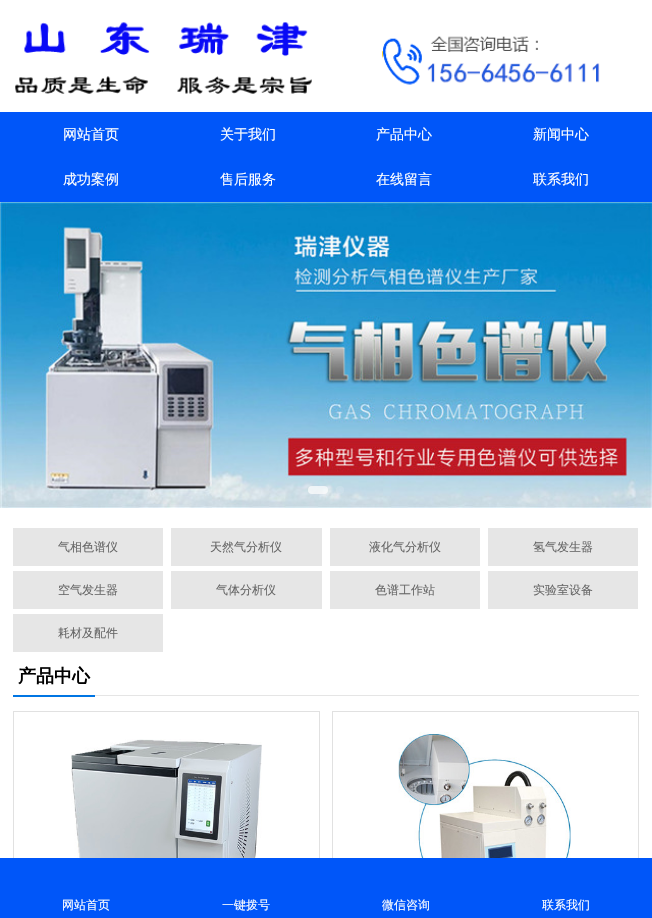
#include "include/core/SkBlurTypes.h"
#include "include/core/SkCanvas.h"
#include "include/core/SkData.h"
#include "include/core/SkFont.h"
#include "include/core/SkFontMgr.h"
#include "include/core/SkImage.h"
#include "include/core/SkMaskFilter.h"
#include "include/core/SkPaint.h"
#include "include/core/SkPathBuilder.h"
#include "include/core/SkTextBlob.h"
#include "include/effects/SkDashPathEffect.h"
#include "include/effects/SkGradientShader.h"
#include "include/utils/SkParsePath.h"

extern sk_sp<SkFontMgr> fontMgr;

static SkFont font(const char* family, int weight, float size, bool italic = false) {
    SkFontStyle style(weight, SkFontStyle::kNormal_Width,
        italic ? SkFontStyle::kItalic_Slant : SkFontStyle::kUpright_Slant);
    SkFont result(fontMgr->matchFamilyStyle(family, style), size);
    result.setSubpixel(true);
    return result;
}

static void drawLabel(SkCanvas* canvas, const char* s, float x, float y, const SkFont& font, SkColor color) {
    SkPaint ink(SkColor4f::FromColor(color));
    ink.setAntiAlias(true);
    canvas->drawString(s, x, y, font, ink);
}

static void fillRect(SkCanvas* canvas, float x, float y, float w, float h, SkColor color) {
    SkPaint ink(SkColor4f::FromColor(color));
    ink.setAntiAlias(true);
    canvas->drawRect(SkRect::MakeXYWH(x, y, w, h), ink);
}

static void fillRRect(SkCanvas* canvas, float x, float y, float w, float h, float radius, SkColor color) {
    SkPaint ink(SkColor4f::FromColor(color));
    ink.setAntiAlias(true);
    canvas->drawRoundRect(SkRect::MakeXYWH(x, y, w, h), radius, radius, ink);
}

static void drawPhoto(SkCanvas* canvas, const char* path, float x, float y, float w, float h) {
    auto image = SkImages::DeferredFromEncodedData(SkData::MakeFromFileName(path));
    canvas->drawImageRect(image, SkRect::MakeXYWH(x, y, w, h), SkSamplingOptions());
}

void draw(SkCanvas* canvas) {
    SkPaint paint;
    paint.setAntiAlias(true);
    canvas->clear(0xFFFFFFFF);
    drawPhoto(canvas, "assets/img1.png", 15, 22, 297, 72);
    drawPhoto(canvas, "assets/img2.png", 382, 36, 218, 49);
    fillRect(canvas, 0, 112, 652, 90, 0xFF0056F9);
    SkFont font1 = font("WenQuanYi Zen Hei", 500, 14);
    drawLabel(canvas, "网站首页", 63, 139, font1, 0xFFFFFFFF);
    drawLabel(canvas, "关于我们", 220, 139, font1, 0xFFFFFFFF);
    drawLabel(canvas, "产品中心", 376, 139, font1, 0xFFFFFFFF);
    drawLabel(canvas, "新闻中心", 533, 139, font1, 0xFFFFFFFF);
    drawLabel(canvas, "成功案例", 63, 184, font1, 0xFFFFFFFF);
    drawLabel(canvas, "售后服务", 220, 184, font1, 0xFFFFFFFF);
    drawLabel(canvas, "在线留言", 376, 184, font1, 0xFFFFFFFF);
    drawLabel(canvas, "联系我们", 533, 184, font1, 0xFFFFFFFF);
    drawPhoto(canvas, "assets/img3.png", 0, 202, 652, 306);
    fillRRect(canvas, 308, 486, 20, 8, 4, 0xB3FFFFFF);
    paint.setColor(0x24FFFFFF);
    canvas->drawCircle(340, 490, 4, paint);
    fillRect(canvas, 13, 528, 150, 38, 0xFFE6E6E6);
    SkFont font2 = font("WenQuanYi Zen Hei", 500, 12);
    drawLabel(canvas, "气相色谱仪", 58, 551, font2, 0xFF666666);
    fillRect(canvas, 171, 528, 151, 38, 0xFFE6E6E6);
    drawLabel(canvas, "天然气分析仪", 210, 551, font2, 0xFF666666);
    fillRect(canvas, 330, 528, 150, 38, 0xFFE6E6E6);
    drawLabel(canvas, "液化气分析仪", 369, 551, font2, 0xFF666666);
    fillRect(canvas, 488, 528, 150, 38, 0xFFE6E6E6);
    drawLabel(canvas, "氢气发生器", 533, 551, font2, 0xFF666666);
    fillRect(canvas, 13, 571, 150, 38, 0xFFE6E6E6);
    drawLabel(canvas, "空气发生器", 58, 594, font2, 0xFF666666);
    fillRect(canvas, 171, 571, 151, 38, 0xFFE6E6E6);
    drawLabel(canvas, "气体分析仪", 216, 594, font2, 0xFF666666);
    fillRect(canvas, 330, 571, 150, 38, 0xFFE6E6E6);
    drawLabel(canvas, "色谱工作站", 375, 594, font2, 0xFF666666);
    fillRect(canvas, 488, 571, 150, 38, 0xFFE6E6E6);
    drawLabel(canvas, "实验室设备", 533, 594, font2, 0xFF666666);
    fillRect(canvas, 13, 614, 150, 38, 0xFFE6E6E6);
    drawLabel(canvas, "耗材及配件", 58, 637, font2, 0xFF666666);
    fillRect(canvas, 95, 695, 544, 1, 0xFFE5E5E5);
    fillRect(canvas, 13, 695, 82, 2, 0xFF0075E3);
    SkFont font3 = font("WenQuanYi Zen Hei", 700, 18);
    drawLabel(canvas, "产品中心", 18, 682, font3, 0xFF000000);
    paint.setStroke(true);
    paint.setStrokeWidth(1);
    paint.setColor(0xFFE1E1E1);
    canvas->drawRect(SkRect::MakeXYWH(13.5f, 711.5f, 306, 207), paint);
    drawPhoto(canvas, "assets/img4.png", 71, 739, 191, 119);
    canvas->drawRect(SkRect::MakeXYWH(332.5f, 711.5f, 306, 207), paint);
    drawPhoto(canvas, "assets/img5.png", 398, 732, 173, 126);
    fillRect(canvas, 0, 858, 652, 60, 0xFF0056F9);
    drawLabel(canvas, "网站首页", 62, 909, font2, 0xFFFFFFFF);
    drawLabel(canvas, "一键拨号", 222, 909, font2, 0xFFFFFFFF);
    drawLabel(canvas, "微信咨询", 382, 909, font2, 0xFFFFFFFF);
    drawLabel(canvas, "联系我们", 542, 909, font2, 0xFFFFFFFF);
}
